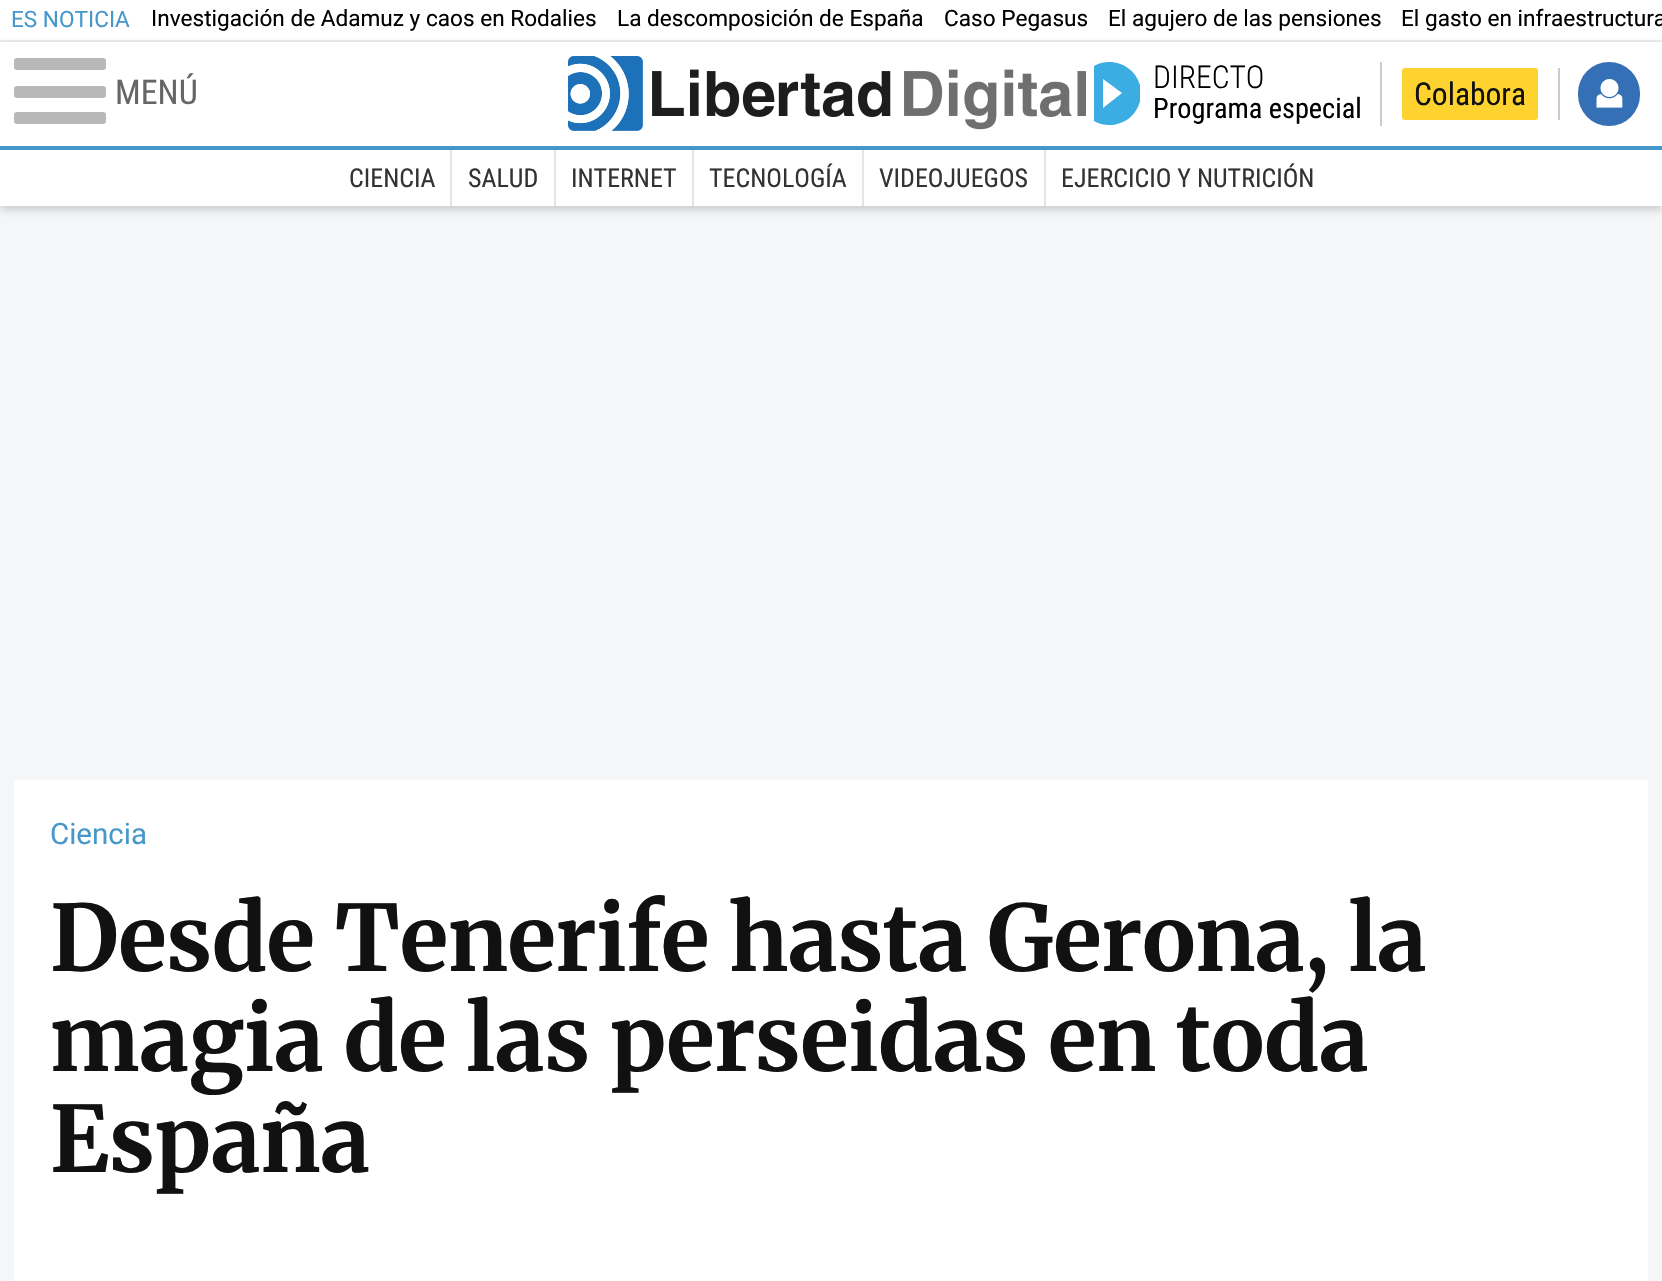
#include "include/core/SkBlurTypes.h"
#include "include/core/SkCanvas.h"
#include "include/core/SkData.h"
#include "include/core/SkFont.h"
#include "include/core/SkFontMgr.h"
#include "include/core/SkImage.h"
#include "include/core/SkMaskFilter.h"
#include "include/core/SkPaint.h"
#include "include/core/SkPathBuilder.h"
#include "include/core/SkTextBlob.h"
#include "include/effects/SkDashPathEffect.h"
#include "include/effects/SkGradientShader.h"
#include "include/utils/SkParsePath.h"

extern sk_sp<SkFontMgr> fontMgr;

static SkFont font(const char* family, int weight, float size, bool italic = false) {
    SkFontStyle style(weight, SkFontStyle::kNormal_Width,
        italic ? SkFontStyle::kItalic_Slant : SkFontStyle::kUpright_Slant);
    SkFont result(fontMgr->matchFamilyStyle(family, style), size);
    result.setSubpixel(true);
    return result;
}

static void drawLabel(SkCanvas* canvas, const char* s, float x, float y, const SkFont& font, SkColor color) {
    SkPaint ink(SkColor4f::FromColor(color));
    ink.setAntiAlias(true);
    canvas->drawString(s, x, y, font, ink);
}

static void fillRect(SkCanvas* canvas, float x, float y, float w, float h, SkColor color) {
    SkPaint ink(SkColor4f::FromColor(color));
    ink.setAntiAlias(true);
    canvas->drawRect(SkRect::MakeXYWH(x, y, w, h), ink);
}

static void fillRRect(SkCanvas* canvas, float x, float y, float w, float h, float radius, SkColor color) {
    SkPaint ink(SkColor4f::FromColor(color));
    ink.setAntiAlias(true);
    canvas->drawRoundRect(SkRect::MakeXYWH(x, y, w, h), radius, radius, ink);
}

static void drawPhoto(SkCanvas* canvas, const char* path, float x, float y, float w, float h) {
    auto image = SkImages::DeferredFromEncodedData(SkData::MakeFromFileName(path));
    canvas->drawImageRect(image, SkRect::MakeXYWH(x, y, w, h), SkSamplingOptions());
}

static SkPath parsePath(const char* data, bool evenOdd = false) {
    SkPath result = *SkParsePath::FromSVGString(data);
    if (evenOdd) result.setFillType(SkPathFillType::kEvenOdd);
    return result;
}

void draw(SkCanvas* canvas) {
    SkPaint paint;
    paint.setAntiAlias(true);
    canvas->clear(0xFFF5F6F8);
    fillRect(canvas, 0, 0, 1662, 40, 0xFFFFFFFF);
    fillRect(canvas, 0, 40, 1662, 2, 0xFFECF0F1);
    SkFont font1 = font("Roboto", 400, 22.6f);
    drawLabel(canvas, "ES NOTICIA", 11, 27, font1, 0xFF4698CB);
    drawLabel(canvas, "Investigación de Adamuz y caos en Rodalies", 151, 26, font1, 0xFF000000);
    drawLabel(canvas, "La descomposición de España", 617, 26, font1, 0xFF000000);
    drawLabel(canvas, "Caso Pegasus", 944, 26, font1, 0xFF000000);
    drawLabel(canvas, "El agujero de las pensiones", 1108, 26, font1, 0xFF000000);
    drawLabel(canvas, "El gasto en infraestructura", 1401, 26, font1, 0xFF000000);
    paint.setColor(0x70323232);
    paint.setMaskFilter(SkMaskFilter::MakeBlur(kNormal_SkBlurStyle, 4));
    canvas->drawRect(SkRect::MakeXYWH(0, 46, 1662, 108), paint);
    paint.setMaskFilter(nullptr);
    fillRect(canvas, 0, 42, 1662, 104, 0xFFFFFFFF);
    fillRect(canvas, 0, 146, 1662, 4, 0xFF4698CB);
    fillRRect(canvas, 14, 58, 92, 12, 3, 0xFFB8B8B8);
    fillRRect(canvas, 14, 86, 92, 12, 3, 0xFFB8B8B8);
    fillRRect(canvas, 14, 112, 92, 12, 3, 0xFFB8B8B8);
    SkFont font2 = font("Roboto Condensed", 400, 34);
    drawLabel(canvas, "MENÚ", 115, 104, font2, 0xFF666666);
    drawPhoto(canvas, "assets/img1.png", 568, 56, 518, 75);
    fillRect(canvas, 1380, 62, 2, 64, 0xFFCCCCCC);
    canvas->save();
    canvas->clipRect(SkRect::MakeXYWH(1094, 62, 46, 64));
    paint.setColor(0xFF3BADE3);
    canvas->drawPath(parsePath("M1109 62C1092 62 1078 76 1078 93C1078 111 1092 125 1109 125C1127 125 1141 111 1141 93C1141 76 1127 62 1109 62ZM1103 108V79L1122 93Z"), paint);
    canvas->restore();
    SkFont font3 = font("Roboto Condensed", 300, 31.5f);
    drawLabel(canvas, "DIRECTO", 1153, 88, font3, 0xFF000000);
    SkFont font4 = font("Roboto Condensed", 400, 28.25f);
    drawLabel(canvas, "Programa especial", 1153, 118, font4, 0xFF000000);
    fillRect(canvas, 1558, 68, 2, 52, 0xFFCCCCCC);
    fillRRect(canvas, 1402, 68, 136, 52, 3, 0xFFFED330);
    SkFont font5 = font("Roboto Condensed", 400, 31.5f);
    drawLabel(canvas, "Colabora", 1414, 105, font5, 0xFF111111);
    fillRRect(canvas, 1578, 62, 62, 64, 31, 0xFF3570B6);
    drawPhoto(canvas, "assets/img2.png", 1596, 79, 27, 29);
    paint.setColor(0x38323232);
    paint.setMaskFilter(SkMaskFilter::MakeBlur(kNormal_SkBlurStyle, 4));
    canvas->drawRect(SkRect::MakeXYWH(0, 154, 1662, 56), paint);
    paint.setMaskFilter(nullptr);
    fillRect(canvas, 0, 150, 1662, 56, 0xFFFFFFFF);
    SkFont font6 = font("Roboto Condensed", 400, 26);
    drawLabel(canvas, "CIENCIA", 349, 187, font6, 0xFF333333);
    fillRect(canvas, 450, 150, 2, 56, 0xFFE5E5E5);
    drawLabel(canvas, "SALUD", 468, 187, font6, 0xFF333333);
    fillRect(canvas, 554, 150, 2, 56, 0xFFE5E5E5);
    drawLabel(canvas, "INTERNET", 571, 187, font6, 0xFF333333);
    fillRect(canvas, 692, 150, 2, 56, 0xFFE5E5E5);
    drawLabel(canvas, "TECNOLOGÍA", 709, 187, font6, 0xFF333333);
    fillRect(canvas, 862, 150, 2, 56, 0xFFE5E5E5);
    drawLabel(canvas, "VIDEOJUEGOS", 879, 187, font6, 0xFF333333);
    fillRect(canvas, 1044, 150, 2, 56, 0xFFE5E5E5);
    drawLabel(canvas, "EJERCICIO Y NUTRICIÓN", 1061, 187, font6, 0xFF333333);
    fillRect(canvas, 14, 780, 1634, 501, 0xFFFFFFFF);
    SkFont font7 = font("Roboto", 400, 29.5f);
    drawLabel(canvas, "Ciencia", 50, 844, font7, 0xFF4698CB);
    SkFont font8 = font("Merriweather", 700, 91.25f);
    drawLabel(canvas, "Desde Tenerife hasta Gerona, la", 50, 971, font8, 0xFF111111);
    drawLabel(canvas, "magia de las perseidas en toda", 50, 1071, font8, 0xFF111111);
    drawLabel(canvas, "España", 50, 1172, font8, 0xFF111111);
}
